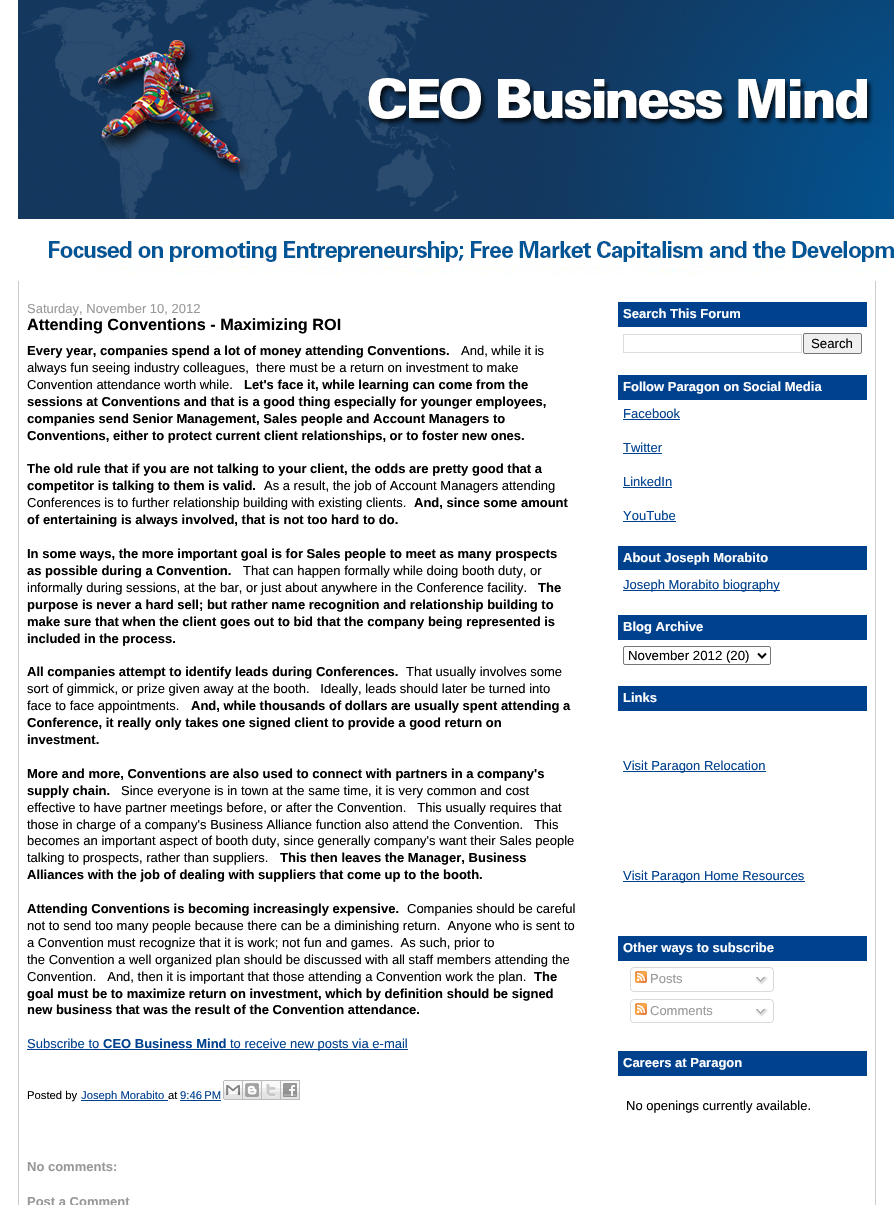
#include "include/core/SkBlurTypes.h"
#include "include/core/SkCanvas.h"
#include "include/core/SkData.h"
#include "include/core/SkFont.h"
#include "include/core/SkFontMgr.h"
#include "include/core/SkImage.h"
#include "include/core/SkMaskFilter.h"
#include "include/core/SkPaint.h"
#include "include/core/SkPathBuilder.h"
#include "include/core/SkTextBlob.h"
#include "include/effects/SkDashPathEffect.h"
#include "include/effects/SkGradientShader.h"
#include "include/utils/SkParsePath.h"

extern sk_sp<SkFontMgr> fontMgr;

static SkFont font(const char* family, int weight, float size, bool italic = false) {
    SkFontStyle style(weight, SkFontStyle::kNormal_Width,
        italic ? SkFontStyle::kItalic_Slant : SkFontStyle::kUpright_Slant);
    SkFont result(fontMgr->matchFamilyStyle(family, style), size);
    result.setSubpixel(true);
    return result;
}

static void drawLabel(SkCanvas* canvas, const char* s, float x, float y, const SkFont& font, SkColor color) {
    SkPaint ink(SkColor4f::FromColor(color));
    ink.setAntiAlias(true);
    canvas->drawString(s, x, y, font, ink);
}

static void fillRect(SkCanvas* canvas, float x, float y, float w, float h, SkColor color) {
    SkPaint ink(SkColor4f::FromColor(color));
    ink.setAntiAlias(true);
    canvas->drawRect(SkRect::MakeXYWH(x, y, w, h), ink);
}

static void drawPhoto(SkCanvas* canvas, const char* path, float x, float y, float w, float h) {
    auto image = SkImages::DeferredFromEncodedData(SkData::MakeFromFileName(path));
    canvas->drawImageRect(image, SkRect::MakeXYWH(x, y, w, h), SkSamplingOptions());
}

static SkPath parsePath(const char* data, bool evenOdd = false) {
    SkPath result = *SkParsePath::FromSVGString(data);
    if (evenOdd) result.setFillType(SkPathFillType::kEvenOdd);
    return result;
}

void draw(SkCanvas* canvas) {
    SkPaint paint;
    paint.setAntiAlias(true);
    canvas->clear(0xFFFFFFFF);
    drawPhoto(canvas, "assets/img1.png", 18, 0, 876, 276);
    fillRect(canvas, 875, 281, 1, 924, 0xFFCCCCCC);
    fillRect(canvas, 18, 281, 1, 924, 0xFFCCCCCC);
    SkFont font1 = font("Liberation Sans", 400, 13);
    drawLabel(canvas, "Saturday, November 10, 2012", 27, 313, font1, 0xFF999999);
    SkFont font2 = font("Liberation Sans", 700, 16.25f);
    drawLabel(canvas, "Attending Conventions - Maximizing ROI", 27, 330, font2, 0xFF000000);
    SkFont font3 = font("Liberation Sans", 700, 13);
    drawLabel(canvas, "Every year, companies spend a lot of money attending Conventions.", 27, 355, font3, 0xFF000000);
    drawLabel(canvas, "And, while it is", 461, 355, font1, 0xFF000000);
    drawLabel(canvas, "always fun seeing industry colleagues,  there must be a return on investment to make", 27, 372, font1, 0xFF000000);
    drawLabel(canvas, "Convention attendance worth while.", 27, 389, font1, 0xFF000000);
    drawLabel(canvas, "Let's face it, while learning can come from the", 244, 389, font3, 0xFF000000);
    drawLabel(canvas, "sessions at Conventions and that is a good thing especially for younger employees,", 27, 406, font3, 0xFF000000);
    drawLabel(canvas, "companies send Senior Management, Sales people and Account Managers to", 27, 423, font3, 0xFF000000);
    drawLabel(canvas, "Conventions, either to protect current client relationships, or to foster new ones.", 27, 440, font3, 0xFF000000);
    drawLabel(canvas, "The old rule that if you are not talking to your client, the odds are pretty good that a", 27, 473, font3, 0xFF000000);
    drawLabel(canvas, "competitor is talking to them is valid.", 27, 490, font3, 0xFF000000);
    drawLabel(canvas, "As a result, the job of Account Managers attending", 264, 490, font1, 0xFF000000);
    drawLabel(canvas, "Conferences is to further relationship building with existing clients.", 27, 507, font1, 0xFF000000);
    drawLabel(canvas, "And, since some amount", 414, 507, font3, 0xFF000000);
    drawLabel(canvas, "of entertaining is always involved, that is not too hard to do.", 27, 524, font3, 0xFF000000);
    drawLabel(canvas, "In some ways, the more important goal is for Sales people to meet as many prospects", 27, 558, font3, 0xFF000000);
    drawLabel(canvas, "as possible during a Convention.", 27, 575, font3, 0xFF000000);
    drawLabel(canvas, "That can happen formally while doing booth duty, or", 243, 575, font1, 0xFF000000);
    drawLabel(canvas, "informally during sessions, at the bar, or just about anywhere in the Conference facility.", 27, 592, font1, 0xFF000000);
    drawLabel(canvas, "The", 538, 592, font3, 0xFF000000);
    drawLabel(canvas, "purpose is never a hard sell; but rather name recognition and relationship building to", 27, 609, font3, 0xFF000000);
    drawLabel(canvas, "make sure that when the client goes out to bid that the company being represented is", 27, 626, font3, 0xFF000000);
    drawLabel(canvas, "included in the process.", 27, 643, font3, 0xFF000000);
    drawLabel(canvas, "All companies attempt to identify leads during Conferences.", 27, 676, font3, 0xFF000000);
    drawLabel(canvas, "That usually involves some", 406, 676, font1, 0xFF000000);
    drawLabel(canvas, "sort of gimmick, or prize given away at the booth.   Ideally, leads should later be turned into", 27, 693, font1, 0xFF000000);
    drawLabel(canvas, "face to face appointments.", 27, 710, font1, 0xFF000000);
    drawLabel(canvas, "And, while thousands of dollars are usually spent attending a", 191, 710, font3, 0xFF000000);
    drawLabel(canvas, "Conference, it really only takes one signed client to provide a good return on", 27, 727, font3, 0xFF000000);
    drawLabel(canvas, "investment.", 27, 744, font3, 0xFF000000);
    drawLabel(canvas, "More and more, Conventions are also used to connect with partners in a company's", 27, 778, font3, 0xFF000000);
    drawLabel(canvas, "supply chain.", 27, 795, font3, 0xFF000000);
    drawLabel(canvas, "Since everyone is in town at the same time, it is very common and cost", 121, 795, font1, 0xFF000000);
    drawLabel(canvas, "effective to have partner meetings before, or after the Convention.   This usually requires that", 27, 812, font1, 0xFF000000);
    drawLabel(canvas, "those in charge of a company's Business Alliance function also attend the Convention.   This", 27, 829, font1, 0xFF000000);
    drawLabel(canvas, "becomes an important aspect of booth duty, since generally company's want their Sales people", 27, 845, font1, 0xFF000000);
    drawLabel(canvas, "talking to prospects, rather than suppliers.", 27, 862, font1, 0xFF000000);
    drawLabel(canvas, "This then leaves the Manager, Business", 280, 862, font3, 0xFF000000);
    drawLabel(canvas, "Alliances with the job of dealing with suppliers that come up to the booth.", 27, 879, font3, 0xFF000000);
    drawLabel(canvas, "Attending Conventions is becoming increasingly expensive.", 27, 913, font3, 0xFF000000);
    drawLabel(canvas, "Companies should be careful", 407, 913, font1, 0xFF000000);
    drawLabel(canvas, "not to send too many people because there can be a diminishing return.  Anyone who is sent to", 27, 930, font1, 0xFF000000);
    drawLabel(canvas, "a Convention must recognize that it is work; not fun and games.  As such, prior to", 27, 947, font1, 0xFF000000);
    drawLabel(canvas, "the Convention a well organized plan should be discussed with all staff members attending the", 27, 964, font1, 0xFF000000);
    drawLabel(canvas, "Convention.   And, then it is important that those attending a Convention work the plan.", 27, 981, font1, 0xFF000000);
    drawLabel(canvas, "The", 534, 981, font3, 0xFF000000);
    drawLabel(canvas, "goal must be to maximize return on investment, which by definition should be signed", 27, 998, font3, 0xFF000000);
    drawLabel(canvas, "new business that was the result of the Convention attendance.", 27, 1014, font3, 0xFF000000);
    drawLabel(canvas, "Subscribe to", 27, 1048, font1, 0xFF00418E);
    drawLabel(canvas, "CEO Business Mind", 103, 1048, font3, 0xFF00418E);
    fillRect(canvas, 27, 1049, 381, 1, 0xFF00418E);
    drawLabel(canvas, "to receive new posts via e-mail", 230, 1048, font1, 0xFF00418E);
    SkFont font4 = font("Liberation Sans", 400, 11.25f);
    drawLabel(canvas, "Posted by", 27, 1099, font4, 0xFF000000);
    fillRect(canvas, 81, 1100, 87, 1, 0xFF00418E);
    drawLabel(canvas, "Joseph Morabito", 81, 1099, font4, 0xFF00418E);
    drawLabel(canvas, "at", 168, 1099, font4, 0xFF000000);
    drawLabel(canvas, "9:46 PM", 180, 1099, font4, 0xFF00418E);
    fillRect(canvas, 180, 1100, 41, 1, 0xFF00418E);
    drawPhoto(canvas, "assets/img2.png", 223, 1080, 20, 20);
    drawPhoto(canvas, "assets/img3.png", 243, 1080, 19, 20);
    drawPhoto(canvas, "assets/img4.png", 262, 1080, 19, 20);
    drawPhoto(canvas, "assets/img5.png", 281, 1080, 19, 20);
    drawLabel(canvas, "No comments:", 27, 1171, font3, 0xFF999999);
    drawLabel(canvas, "Post a Comment", 27, 1206, font3, 0xFF999999);
    fillRect(canvas, 618, 302, 249, 25, 0xFF00418E);
    drawLabel(canvas, "Search This Forum", 623, 318, font3, 0xFFFFFFFF);
    paint.setStroke(true);
    paint.setStrokeWidth(1);
    paint.setColor(0xFFDDDDDD);
    canvas->drawRect(SkRect::MakeXYWH(623.5f, 334.5f, 178, 18), paint);
    paint.setStroke(false);
    paint.setColor(0xFFEFEFEF);
    canvas->drawRoundRect(SkRect::MakeXYWH(803.5f, 333.5f, 58, 20), 1.5f, 1.5f, paint);
    paint.setStroke(true);
    paint.setColor(0xFF767676);
    canvas->drawRoundRect(SkRect::MakeXYWH(803.5f, 333.5f, 58, 20), 1.5f, 1.5f, paint);
    SkFont font5 = font("Liberation Sans", 400, 13.25f);
    drawLabel(canvas, "Search", 811, 348, font5, 0xFF000000);
    fillRect(canvas, 618, 375, 249, 25, 0xFF00418E);
    drawLabel(canvas, "Follow Paragon on Social Media", 623, 391, font3, 0xFFFFFFFF);
    drawLabel(canvas, "Facebook", 623, 418, font1, 0xFF00418E);
    fillRect(canvas, 623, 419, 57, 1, 0xFF00418E);
    drawLabel(canvas, "Twitter", 623, 452, font1, 0xFF00418E);
    fillRect(canvas, 623, 453, 39, 1, 0xFF00418E);
    drawLabel(canvas, "LinkedIn", 623, 486, font1, 0xFF00418E);
    fillRect(canvas, 623, 487, 49, 1, 0xFF00418E);
    drawLabel(canvas, "YouTube", 623, 520, font1, 0xFF00418E);
    fillRect(canvas, 623, 521, 53, 1, 0xFF00418E);
    fillRect(canvas, 618, 546, 249, 24, 0xFF00418E);
    drawLabel(canvas, "About Joseph Morabito", 623, 562, font3, 0xFFFFFFFF);
    fillRect(canvas, 623, 590, 157, 1, 0xFF00418E);
    drawLabel(canvas, "Joseph Morabito biography", 623, 589, font1, 0xFF00418E);
    fillRect(canvas, 618, 615, 249, 25, 0xFF00418E);
    drawLabel(canvas, "Blog Archive", 623, 631, font3, 0xFFFFFFFF);
    canvas->drawRoundRect(SkRect::MakeXYWH(623.5f, 646.5f, 147, 18), 1.5f, 1.5f, paint);
    paint.setStrokeWidth(2);
    paint.setColor(0xFF000000);
    canvas->drawPath(parsePath("M758 653.5L762 657.5L766 653.5"), paint);
    drawLabel(canvas, "November 2012 (20)", 628, 660, font5, 0xFF000000);
    fillRect(canvas, 618, 686, 249, 25, 0xFF00418E);
    drawLabel(canvas, "Links", 623, 702, font3, 0xFFFFFFFF);
    fillRect(canvas, 623, 771, 143, 1, 0xFF00418E);
    drawLabel(canvas, "Visit Paragon Relocation", 623, 770, font1, 0xFF00418E);
    fillRect(canvas, 623, 881, 182, 1, 0xFF00418E);
    drawLabel(canvas, "Visit Paragon Home Resources", 623, 880, font1, 0xFF00418E);
    fillRect(canvas, 618, 936, 249, 25, 0xFF00418E);
    drawLabel(canvas, "Other ways to subscribe", 623, 952, font3, 0xFFFFFFFF);
    drawPhoto(canvas, "assets/img6.png", 630, 967, 144, 22);
    drawPhoto(canvas, "assets/img7.png", 635, 971, 12, 12);
    drawLabel(canvas, "Posts", 650, 983, font1, 0xFF999999);
    drawPhoto(canvas, "assets/img8.png", 755, 976, 13, 9);
    drawPhoto(canvas, "assets/img9.png", 630, 989, 144, 3);
    drawPhoto(canvas, "assets/img10.png", 630, 999, 144, 21);
    drawPhoto(canvas, "assets/img7.png", 635, 1003, 12, 12);
    drawLabel(canvas, "Comments", 650, 1015, font1, 0xFF999999);
    drawPhoto(canvas, "assets/img8.png", 755, 1008, 13, 9);
    drawPhoto(canvas, "assets/img9.png", 630, 1020, 144, 3);
    fillRect(canvas, 618, 1051, 249, 25, 0xFF00418E);
    drawLabel(canvas, "Careers at Paragon", 623, 1067, font3, 0xFFFFFFFF);
    drawLabel(canvas, "No openings currently available.", 626, 1110, font1, 0xFF000000);
}
